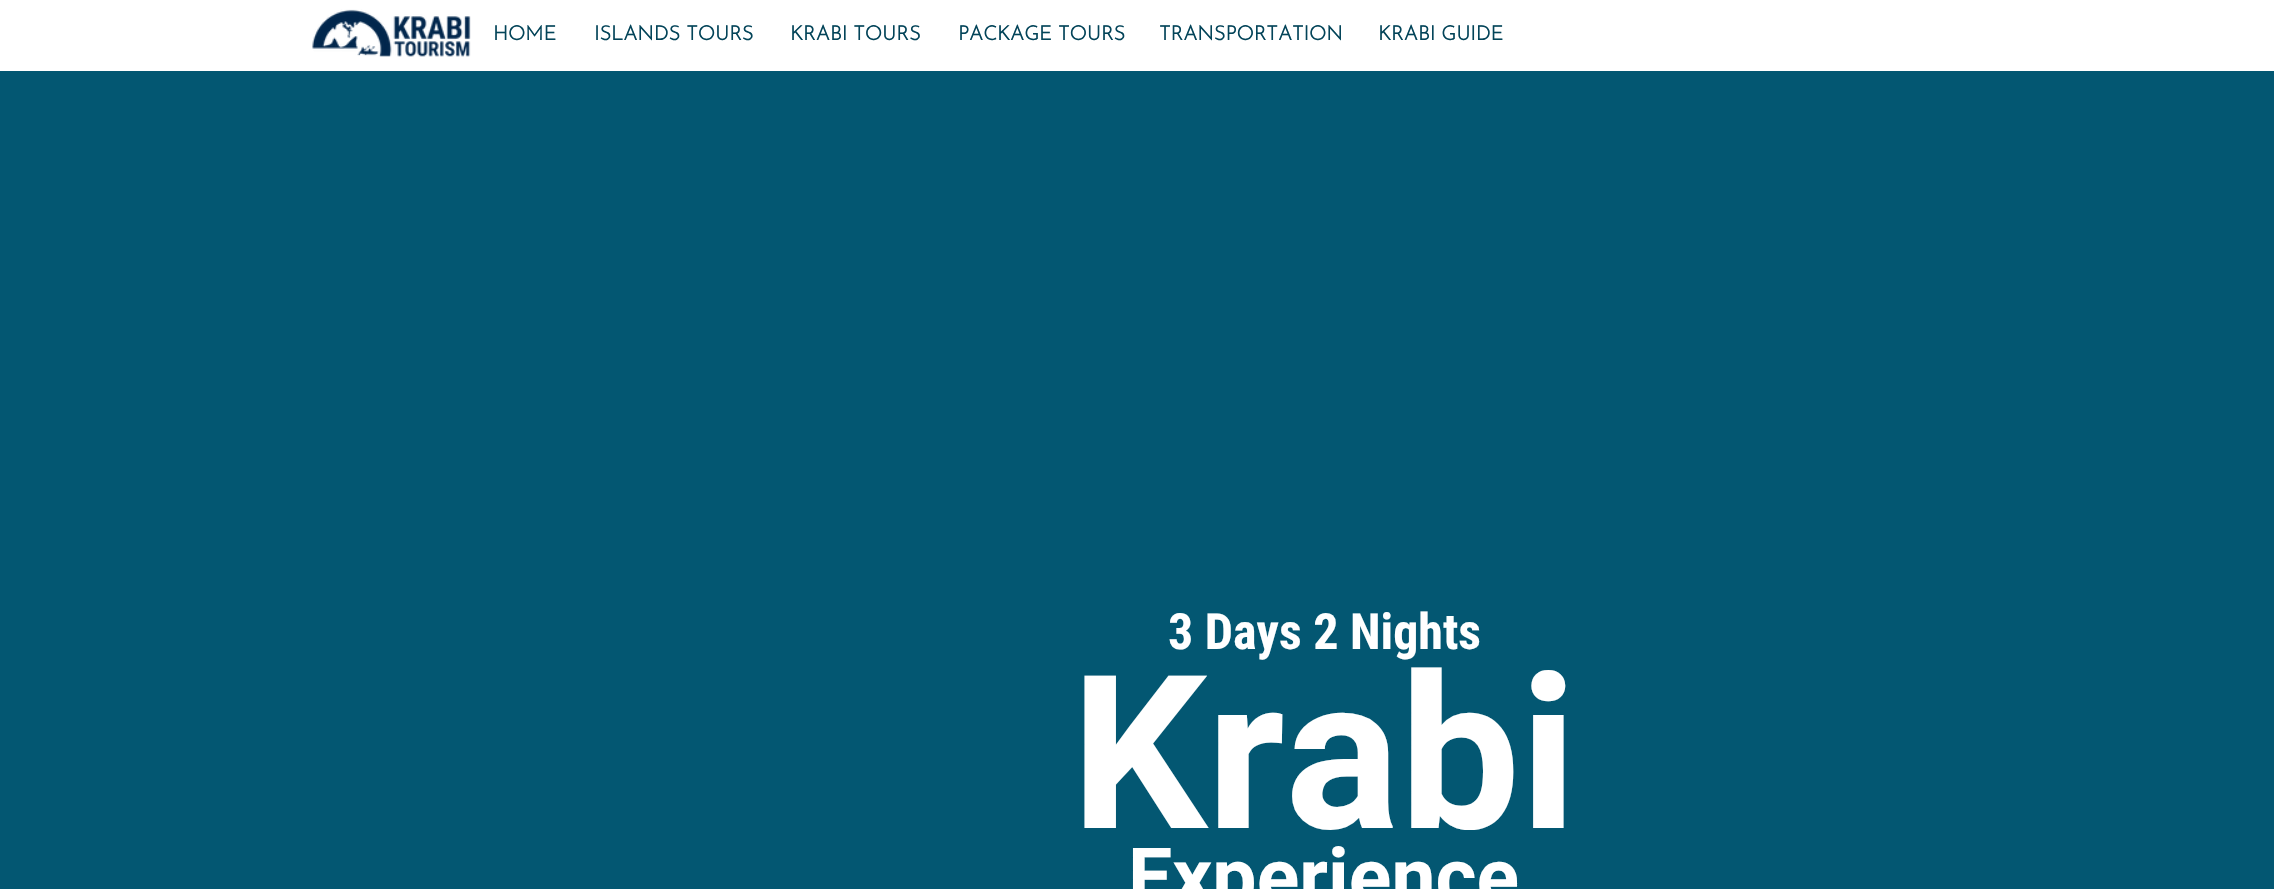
#include "include/core/SkBlurTypes.h"
#include "include/core/SkCanvas.h"
#include "include/core/SkData.h"
#include "include/core/SkFont.h"
#include "include/core/SkFontMgr.h"
#include "include/core/SkImage.h"
#include "include/core/SkMaskFilter.h"
#include "include/core/SkPaint.h"
#include "include/core/SkPathBuilder.h"
#include "include/core/SkTextBlob.h"
#include "include/effects/SkDashPathEffect.h"
#include "include/effects/SkGradientShader.h"
#include "include/utils/SkParsePath.h"

extern sk_sp<SkFontMgr> fontMgr;

static SkFont font(const char* family, int weight, float size, bool italic = false) {
    SkFontStyle style(weight, SkFontStyle::kNormal_Width,
        italic ? SkFontStyle::kItalic_Slant : SkFontStyle::kUpright_Slant);
    SkFont result(fontMgr->matchFamilyStyle(family, style), size);
    result.setSubpixel(true);
    return result;
}

static void drawLabel(SkCanvas* canvas, const char* s, float x, float y, const SkFont& font, SkColor color) {
    SkPaint ink(SkColor4f::FromColor(color));
    ink.setAntiAlias(true);
    canvas->drawString(s, x, y, font, ink);
}

static void fillRect(SkCanvas* canvas, float x, float y, float w, float h, SkColor color) {
    SkPaint ink(SkColor4f::FromColor(color));
    ink.setAntiAlias(true);
    canvas->drawRect(SkRect::MakeXYWH(x, y, w, h), ink);
}

static void drawPhoto(SkCanvas* canvas, const char* path, float x, float y, float w, float h) {
    auto image = SkImages::DeferredFromEncodedData(SkData::MakeFromFileName(path));
    canvas->drawImageRect(image, SkRect::MakeXYWH(x, y, w, h), SkSamplingOptions());
}

void draw(SkCanvas* canvas) {
    SkPaint paint;
    paint.setAntiAlias(true);
    canvas->clear(0xFFFFFFFF);
    drawPhoto(canvas, "assets/img1.png", 312, 9, 159, 48);
    SkFont font1 = font("Josefin Sans", 700, 20);
    drawLabel(canvas, "HOME", 493, 40, font1, 0xFF034459);
    drawLabel(canvas, "ISLANDS TOURS", 594, 40, font1, 0xFF034459);
    drawLabel(canvas, "KRABI TOURS", 790, 40, font1, 0xFF034459);
    drawLabel(canvas, "PACKAGE TOURS", 958, 40, font1, 0xFF034459);
    drawLabel(canvas, "TRANSPORTATION", 1159, 40, font1, 0xFF034459);
    drawLabel(canvas, "KRABI GUIDE", 1378, 40, font1, 0xFF034459);
    fillRect(canvas, 0, 71, 2274, 818, 0xFF035772);
    SkFont font2 = font("Roboto Condensed", 700, 50);
    drawLabel(canvas, "3 Days 2 Nights", 1168, 649, font2, 0xFFFFFFFF);
    SkFont font3 = font("Roboto", 700, 214);
    drawLabel(canvas, "Krabi", 1071, 828, font3, 0xFFFFFFFF);
    SkFont font4 = font("Roboto", 700, 78.75f);
    drawLabel(canvas, "Experience", 1128, 904, font4, 0xFFFFFFFF);
}
